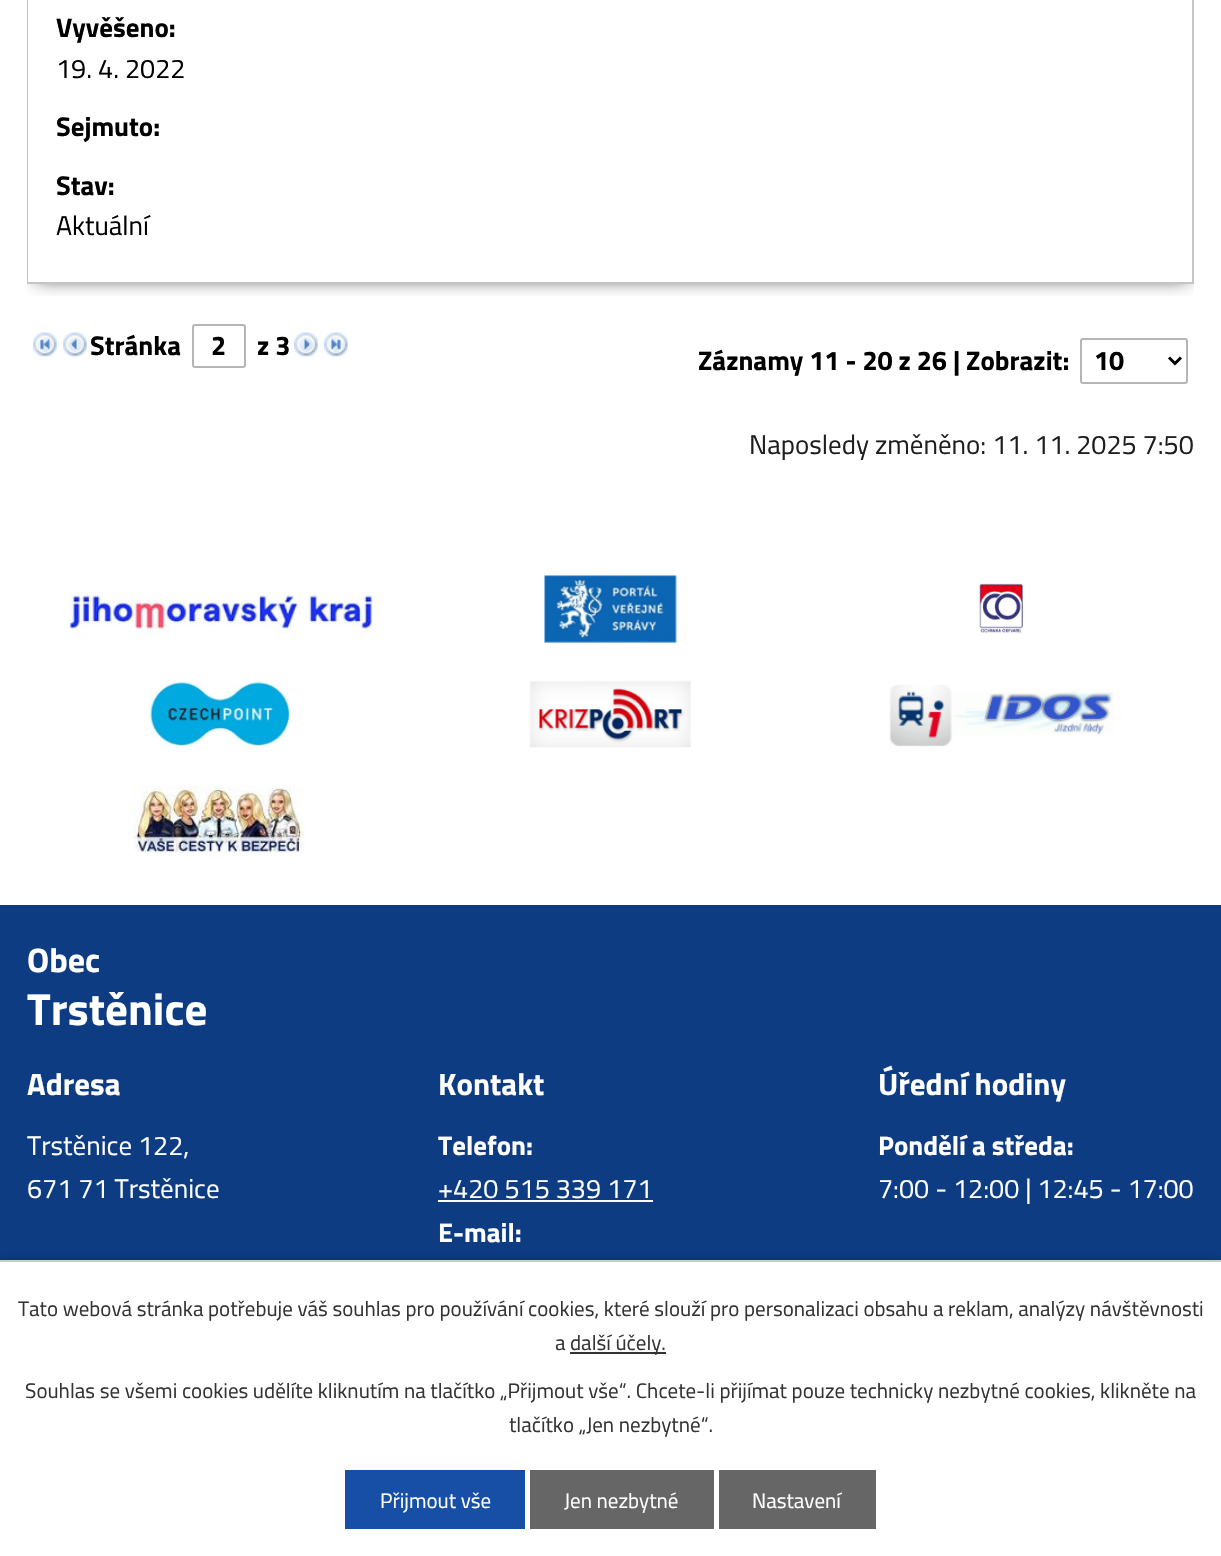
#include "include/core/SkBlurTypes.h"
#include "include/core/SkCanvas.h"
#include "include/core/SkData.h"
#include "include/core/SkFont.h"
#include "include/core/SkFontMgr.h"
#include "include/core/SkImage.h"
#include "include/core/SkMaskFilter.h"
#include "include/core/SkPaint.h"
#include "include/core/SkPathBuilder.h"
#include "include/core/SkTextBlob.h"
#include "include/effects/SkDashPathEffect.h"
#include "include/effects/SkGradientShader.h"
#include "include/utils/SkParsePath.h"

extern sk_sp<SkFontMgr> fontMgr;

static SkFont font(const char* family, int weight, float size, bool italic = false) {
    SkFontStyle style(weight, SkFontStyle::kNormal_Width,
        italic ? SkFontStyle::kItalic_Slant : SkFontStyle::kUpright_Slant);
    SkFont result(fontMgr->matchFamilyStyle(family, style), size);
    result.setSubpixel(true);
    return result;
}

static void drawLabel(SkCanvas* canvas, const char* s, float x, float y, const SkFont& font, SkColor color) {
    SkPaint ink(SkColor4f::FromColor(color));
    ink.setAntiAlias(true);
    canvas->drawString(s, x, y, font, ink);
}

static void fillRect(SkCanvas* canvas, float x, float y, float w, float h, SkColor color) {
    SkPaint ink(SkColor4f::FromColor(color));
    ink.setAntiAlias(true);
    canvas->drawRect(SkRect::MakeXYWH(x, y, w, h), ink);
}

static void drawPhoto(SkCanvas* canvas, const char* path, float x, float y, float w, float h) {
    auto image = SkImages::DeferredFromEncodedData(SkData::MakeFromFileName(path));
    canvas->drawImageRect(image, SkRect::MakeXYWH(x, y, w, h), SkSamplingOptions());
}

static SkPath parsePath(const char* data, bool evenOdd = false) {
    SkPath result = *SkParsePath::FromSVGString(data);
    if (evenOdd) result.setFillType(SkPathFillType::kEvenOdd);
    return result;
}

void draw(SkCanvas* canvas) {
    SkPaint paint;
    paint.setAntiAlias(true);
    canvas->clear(0xFFFFFFFF);
    canvas->save();
    canvas->clipRect(SkRect::MakeXYWH(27, 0, 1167, 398));
    canvas->clipRect(SkRect::MakeXYWH(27, 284, 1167, 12));
    paint.setColor(0xFF1E1E1E);
    paint.setMaskFilter(SkMaskFilter::MakeBlur(kNormal_SkBlurStyle, 9));
    canvas->drawRect(SkRect::MakeXYWH(36, -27, 1152, 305), paint);
    paint.setMaskFilter(nullptr);
    canvas->restore();
    paint.setColor(0xFFC5C5C5);
    canvas->drawPath(parsePath("M1194-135V284L1192 282V-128Z"), paint);
    fillRect(canvas, 27, 282, 1167, 2, 0xFFC5C5C5);
    canvas->drawPath(parsePath("M27 284V-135L28-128V282Z"), paint);
    SkFont font1 = font("Titillium Web", 700, 27);
    drawLabel(canvas, "Vyvěšeno:", 56, 37, font1, 0xFF000000);
    SkFont font2 = font("Titillium Web", 400, 27);
    drawLabel(canvas, "19. 4. 2022", 56, 78, font2, 0xFF000000);
    drawLabel(canvas, "Sejmuto:", 56, 136, font1, 0xFF000000);
    drawLabel(canvas, "Stav:", 56, 195, font1, 0xFF000000);
    drawLabel(canvas, "Aktuální", 56, 235, font2, 0xFF000000);
    drawPhoto(canvas, "assets/img1.png", 33, 332, 24, 25);
    drawPhoto(canvas, "assets/img2.png", 63, 332, 24, 25);
    drawLabel(canvas, "Stránka", 90, 355, font1, 0xFF000000);
    paint.setStroke(true);
    paint.setStrokeWidth(2);
    paint.setColor(0xFFB5B5B5);
    canvas->drawRoundRect(SkRect::MakeXYWH(193, 325, 52, 42), 2, 2, paint);
    drawLabel(canvas, "2", 211, 355, font1, 0xFF000000);
    drawLabel(canvas, "z 3", 257, 355, font1, 0xFF000000);
    drawPhoto(canvas, "assets/img3.png", 294, 332, 24, 25);
    drawPhoto(canvas, "assets/img4.png", 324, 332, 24, 25);
    drawLabel(canvas, "Záznamy 11 - 20 z 26 | Zobrazit:", 698, 370, font1, 0xFF000000);
    canvas->drawRoundRect(SkRect::MakeXYWH(1081, 339, 106, 44), 2, 2, paint);
    paint.setStrokeWidth(3);
    paint.setColor(0xFF000000);
    canvas->drawPath(parsePath("M1169 357.5L1175 363.5L1181 357.5"), paint);
    drawLabel(canvas, "10", 1094, 370, font1, 0xFF000000);
    drawLabel(canvas, "Naposledy změněno: 11. 11. 2025 7:50", 749, 454, font2, 0xFF1E1E1E);
    drawPhoto(canvas, "assets/img5.png", 69, 592, 312, 49);
    drawPhoto(canvas, "assets/img6.png", 544, 575, 133, 68);
    drawPhoto(canvas, "assets/img7.png", 978, 583, 45, 51);
    drawPhoto(canvas, "assets/img8.png", 149, 681, 141, 66);
    drawPhoto(canvas, "assets/img9.png", 529, 680, 162, 68);
    drawPhoto(canvas, "assets/img10.png", 889, 684, 225, 63);
    drawPhoto(canvas, "assets/img11.png", 133, 785, 172, 68);
    fillRect(canvas, 0, 905, 1221, 355, 0xFF0D3C83);
    SkFont font3 = font("Titillium Web", 700, 34);
    drawLabel(canvas, "Obec", 27, 972, font3, 0xFFFFFFFF);
    SkFont font4 = font("Titillium Web", 700, 45);
    drawLabel(canvas, "Trstěnice", 27, 1025, font4, 0xFFFFFFFF);
    SkFont font5 = font("Titillium Web", 700, 31);
    drawLabel(canvas, "Adresa", 27, 1095, font5, 0xFFFFFFFF);
    drawLabel(canvas, "Trstěnice 122,", 27, 1155, font2, 0xFFFFFFFF);
    drawLabel(canvas, "671 71 Trstěnice", 27, 1198, font2, 0xFFFFFFFF);
    drawLabel(canvas, "Kontakt", 438, 1095, font5, 0xFFFFFFFF);
    drawLabel(canvas, "Telefon:", 438, 1155, font1, 0xFFFFFFFF);
    drawLabel(canvas, "+420 515 339 171", 438, 1198, font2, 0xFFFFFFFF);
    fillRect(canvas, 438, 1200, 215, 2, 0xFFFFFFFF);
    drawLabel(canvas, "E-mail:", 438, 1242, font1, 0xFFFFFFFF);
    drawLabel(canvas, "Úřední hodiny", 878, 1095, font5, 0xFFFFFFFF);
    drawLabel(canvas, "Pondělí a středa:", 878, 1155, font1, 0xFFFFFFFF);
    drawLabel(canvas, "7:00 - 12:00 | 12:45 - 17:00", 878, 1198, font2, 0xFFFFFFFF);
    paint.setStroke(false);
    paint.setColor(0x33000000);
    paint.setMaskFilter(SkMaskFilter::MakeBlur(kNormal_SkBlurStyle, 4));
    canvas->drawRect(SkRect::MakeXYWH(0, 1260, 1221, 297), paint);
    paint.setMaskFilter(nullptr);
    fillRect(canvas, 0, 1262, 1221, 294, 0xFFFFFFFF);
    fillRect(canvas, 0, 1260, 1221, 2, 0xFFCCCCCC);
    SkFont font6 = font("Titillium Web", 400, 21);
    drawLabel(canvas, "Tato webová stránka potřebuje váš souhlas pro používání cookies, které slouží pro personalizaci obsahu a reklam, analýzy návštěvnosti", 18, 1316, font6, 0xFF333333);
    drawLabel(canvas, "a", 555, 1350, font6, 0xFF333333);
    fillRect(canvas, 570, 1352, 96, 2, 0xFF333333);
    drawLabel(canvas, "další účely.", 570, 1350, font6, 0xFF333333);
    drawLabel(canvas, "Souhlas se všemi cookies udělíte kliknutím na tlačítko „Přijmout vše“. Chcete-li přijímat pouze technicky nezbytné cookies, klikněte na", 25, 1398, font6, 0xFF333333);
    drawLabel(canvas, "tlačítko „Jen nezbytné“.", 509, 1432, font6, 0xFF333333);
    fillRect(canvas, 345, 1470, 180, 59, 0xFF164FA5);
    drawLabel(canvas, "Přijmout vše", 380, 1508, font6, 0xFFFFFFFF);
    fillRect(canvas, 530, 1470, 184, 59, 0xFF666666);
    drawLabel(canvas, "Jen nezbytné", 564, 1508, font6, 0xFFFFFFFF);
    fillRect(canvas, 719, 1470, 157, 59, 0xFF666666);
    drawLabel(canvas, "Nastavení", 752, 1508, font6, 0xFFFFFFFF);
}
